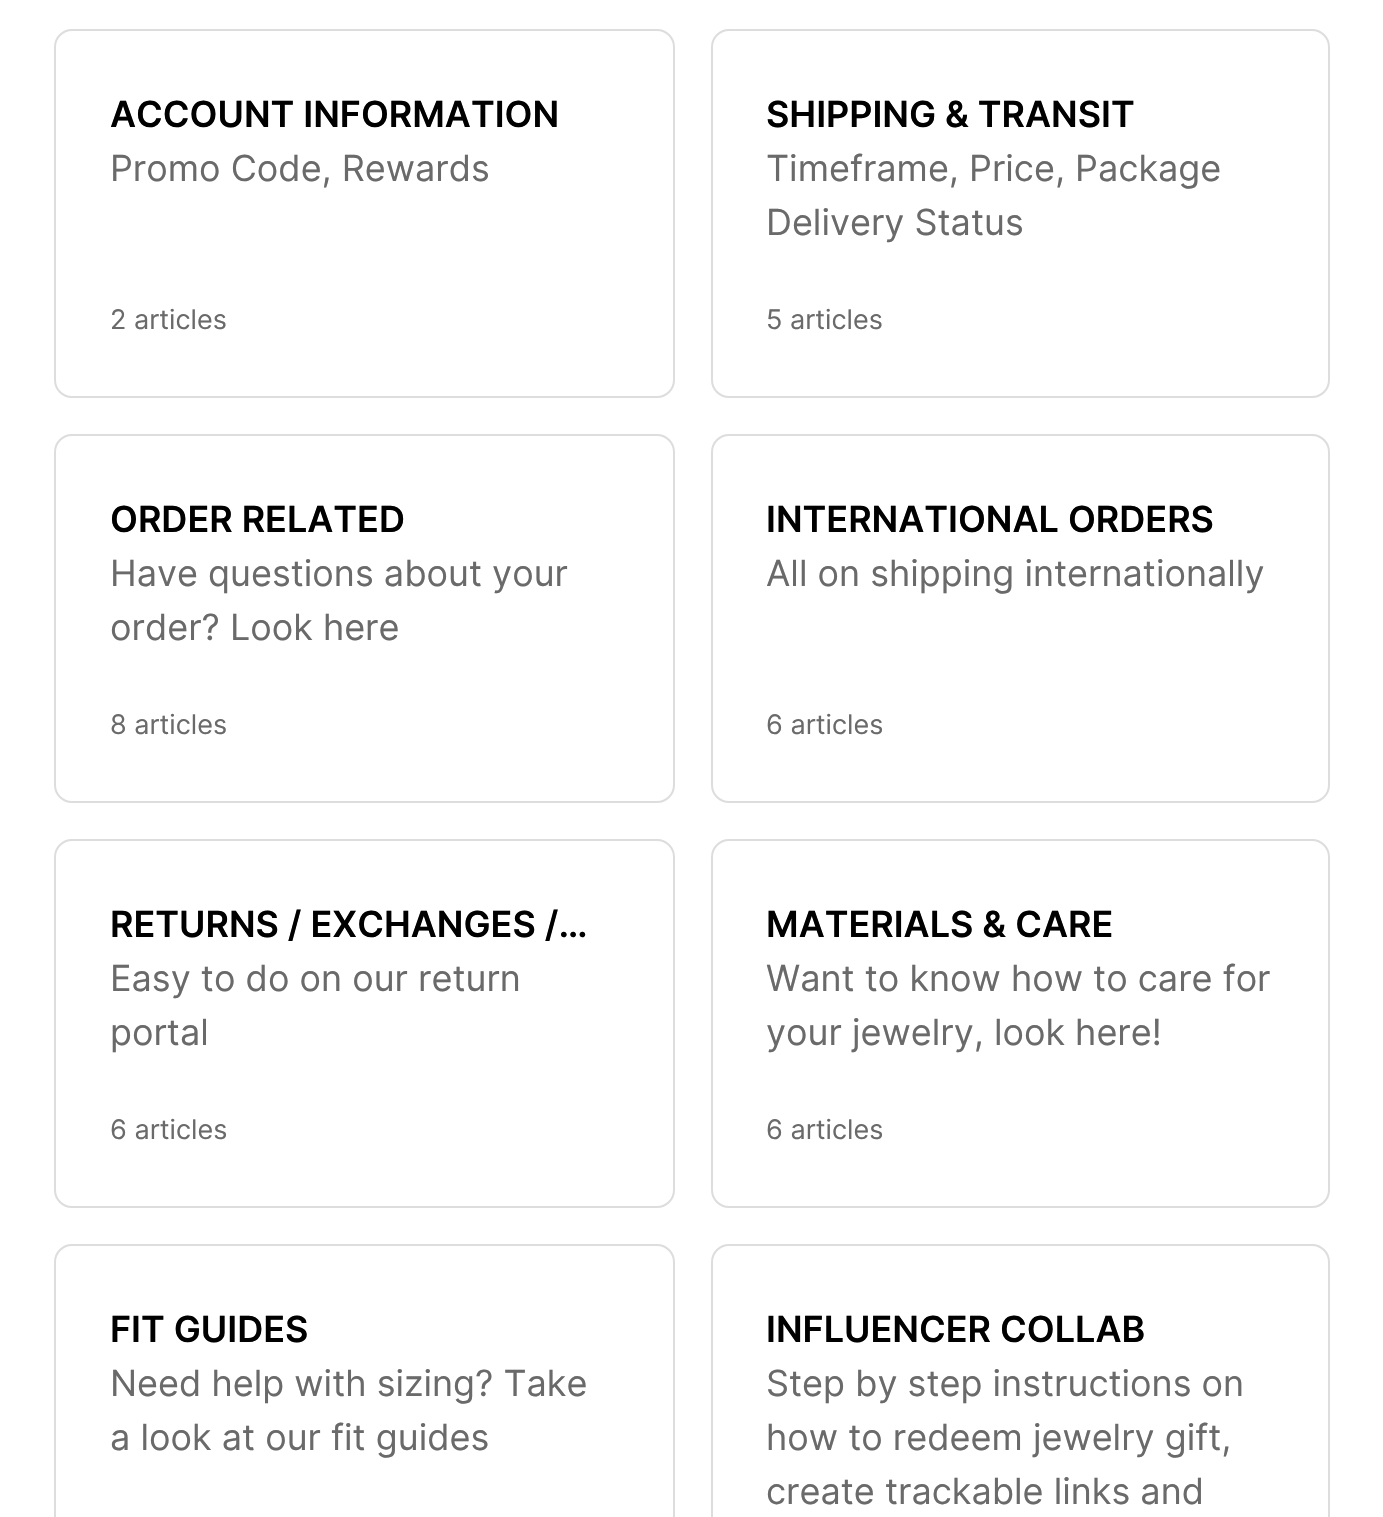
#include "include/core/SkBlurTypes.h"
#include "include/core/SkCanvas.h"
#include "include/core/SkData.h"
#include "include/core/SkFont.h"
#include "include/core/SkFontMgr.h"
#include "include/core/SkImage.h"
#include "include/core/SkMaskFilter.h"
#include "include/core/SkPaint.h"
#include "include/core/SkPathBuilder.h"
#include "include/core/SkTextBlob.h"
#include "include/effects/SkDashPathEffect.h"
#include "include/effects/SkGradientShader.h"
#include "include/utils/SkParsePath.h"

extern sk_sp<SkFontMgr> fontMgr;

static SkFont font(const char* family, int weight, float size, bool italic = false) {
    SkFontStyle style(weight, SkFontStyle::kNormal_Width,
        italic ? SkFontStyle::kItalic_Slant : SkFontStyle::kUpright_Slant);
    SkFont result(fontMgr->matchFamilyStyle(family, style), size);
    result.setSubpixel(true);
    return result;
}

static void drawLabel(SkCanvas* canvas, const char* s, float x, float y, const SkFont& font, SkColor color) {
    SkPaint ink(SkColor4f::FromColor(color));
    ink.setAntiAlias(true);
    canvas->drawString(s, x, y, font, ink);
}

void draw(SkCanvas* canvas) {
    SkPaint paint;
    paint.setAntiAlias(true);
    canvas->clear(0xFFFFFFFF);
    paint.setStroke(true);
    paint.setStrokeWidth(2);
    paint.setColor(0xFFDDDDDD);
    canvas->drawRoundRect(SkRect::MakeXYWH(55, 30, 619, 367), 17, 17, paint);
    SkFont font1 = font("Inter", 600, 36);
    drawLabel(canvas, "ACCOUNT INFORMATION", 110, 127, font1, 0xFF000000);
    SkFont font2 = font("Inter", 400, 36);
    drawLabel(canvas, "Promo Code, Rewards", 110, 181, font2, 0xFF6A6A6A);
    SkFont font3 = font("Inter", 400, 27);
    drawLabel(canvas, "2 articles", 110, 329, font3, 0xFF6A6A6A);
    canvas->drawRoundRect(SkRect::MakeXYWH(712, 30, 617, 367), 17, 17, paint);
    drawLabel(canvas, "SHIPPING & TRANSIT", 766, 127, font1, 0xFF000000);
    drawLabel(canvas, "Timeframe, Price, Package", 766, 181, font2, 0xFF6A6A6A);
    drawLabel(canvas, "Delivery Status", 766, 235, font2, 0xFF6A6A6A);
    drawLabel(canvas, "5 articles", 766, 329, font3, 0xFF6A6A6A);
    canvas->drawRoundRect(SkRect::MakeXYWH(55, 435, 619, 367), 17, 17, paint);
    drawLabel(canvas, "ORDER RELATED", 110, 532, font1, 0xFF000000);
    drawLabel(canvas, "Have questions about your", 110, 586, font2, 0xFF6A6A6A);
    drawLabel(canvas, "order? Look here", 110, 640, font2, 0xFF6A6A6A);
    drawLabel(canvas, "8 articles", 110, 734, font3, 0xFF6A6A6A);
    canvas->drawRoundRect(SkRect::MakeXYWH(712, 435, 617, 367), 17, 17, paint);
    drawLabel(canvas, "INTERNATIONAL ORDERS", 766, 532, font1, 0xFF000000);
    drawLabel(canvas, "All on shipping internationally", 766, 586, font2, 0xFF6A6A6A);
    drawLabel(canvas, "6 articles", 766, 734, font3, 0xFF6A6A6A);
    canvas->drawRoundRect(SkRect::MakeXYWH(55, 840, 619, 367), 17, 17, paint);
    drawLabel(canvas, "RETURNS / EXCHANGES /…", 110, 937, font1, 0xFF000000);
    drawLabel(canvas, "Easy to do on our return", 110, 991, font2, 0xFF6A6A6A);
    drawLabel(canvas, "portal", 110, 1045, font2, 0xFF6A6A6A);
    drawLabel(canvas, "6 articles", 110, 1139, font3, 0xFF6A6A6A);
    canvas->drawRoundRect(SkRect::MakeXYWH(712, 840, 617, 367), 17, 17, paint);
    drawLabel(canvas, "MATERIALS & CARE", 766, 937, font1, 0xFF000000);
    drawLabel(canvas, "Want to know how to care for", 766, 991, font2, 0xFF6A6A6A);
    drawLabel(canvas, "your jewelry, look here!", 766, 1045, font2, 0xFF6A6A6A);
    drawLabel(canvas, "6 articles", 766, 1139, font3, 0xFF6A6A6A);
    canvas->drawRoundRect(SkRect::MakeXYWH(55, 1245, 619, 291), 17, 17, paint);
    drawLabel(canvas, "FIT GUIDES", 110, 1342, font1, 0xFF000000);
    drawLabel(canvas, "Need help with sizing? Take", 110, 1396, font2, 0xFF6A6A6A);
    drawLabel(canvas, "a look at our fit guides", 110, 1450, font2, 0xFF6A6A6A);
    canvas->drawRoundRect(SkRect::MakeXYWH(712, 1245, 617, 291), 17, 17, paint);
    drawLabel(canvas, "INFLUENCER COLLAB", 766, 1342, font1, 0xFF000000);
    drawLabel(canvas, "Step by step instructions on", 766, 1396, font2, 0xFF6A6A6A);
    drawLabel(canvas, "how to redeem jewelry gift,", 766, 1450, font2, 0xFF6A6A6A);
    drawLabel(canvas, "create trackable links and", 766, 1504, font2, 0xFF6A6A6A);
}
